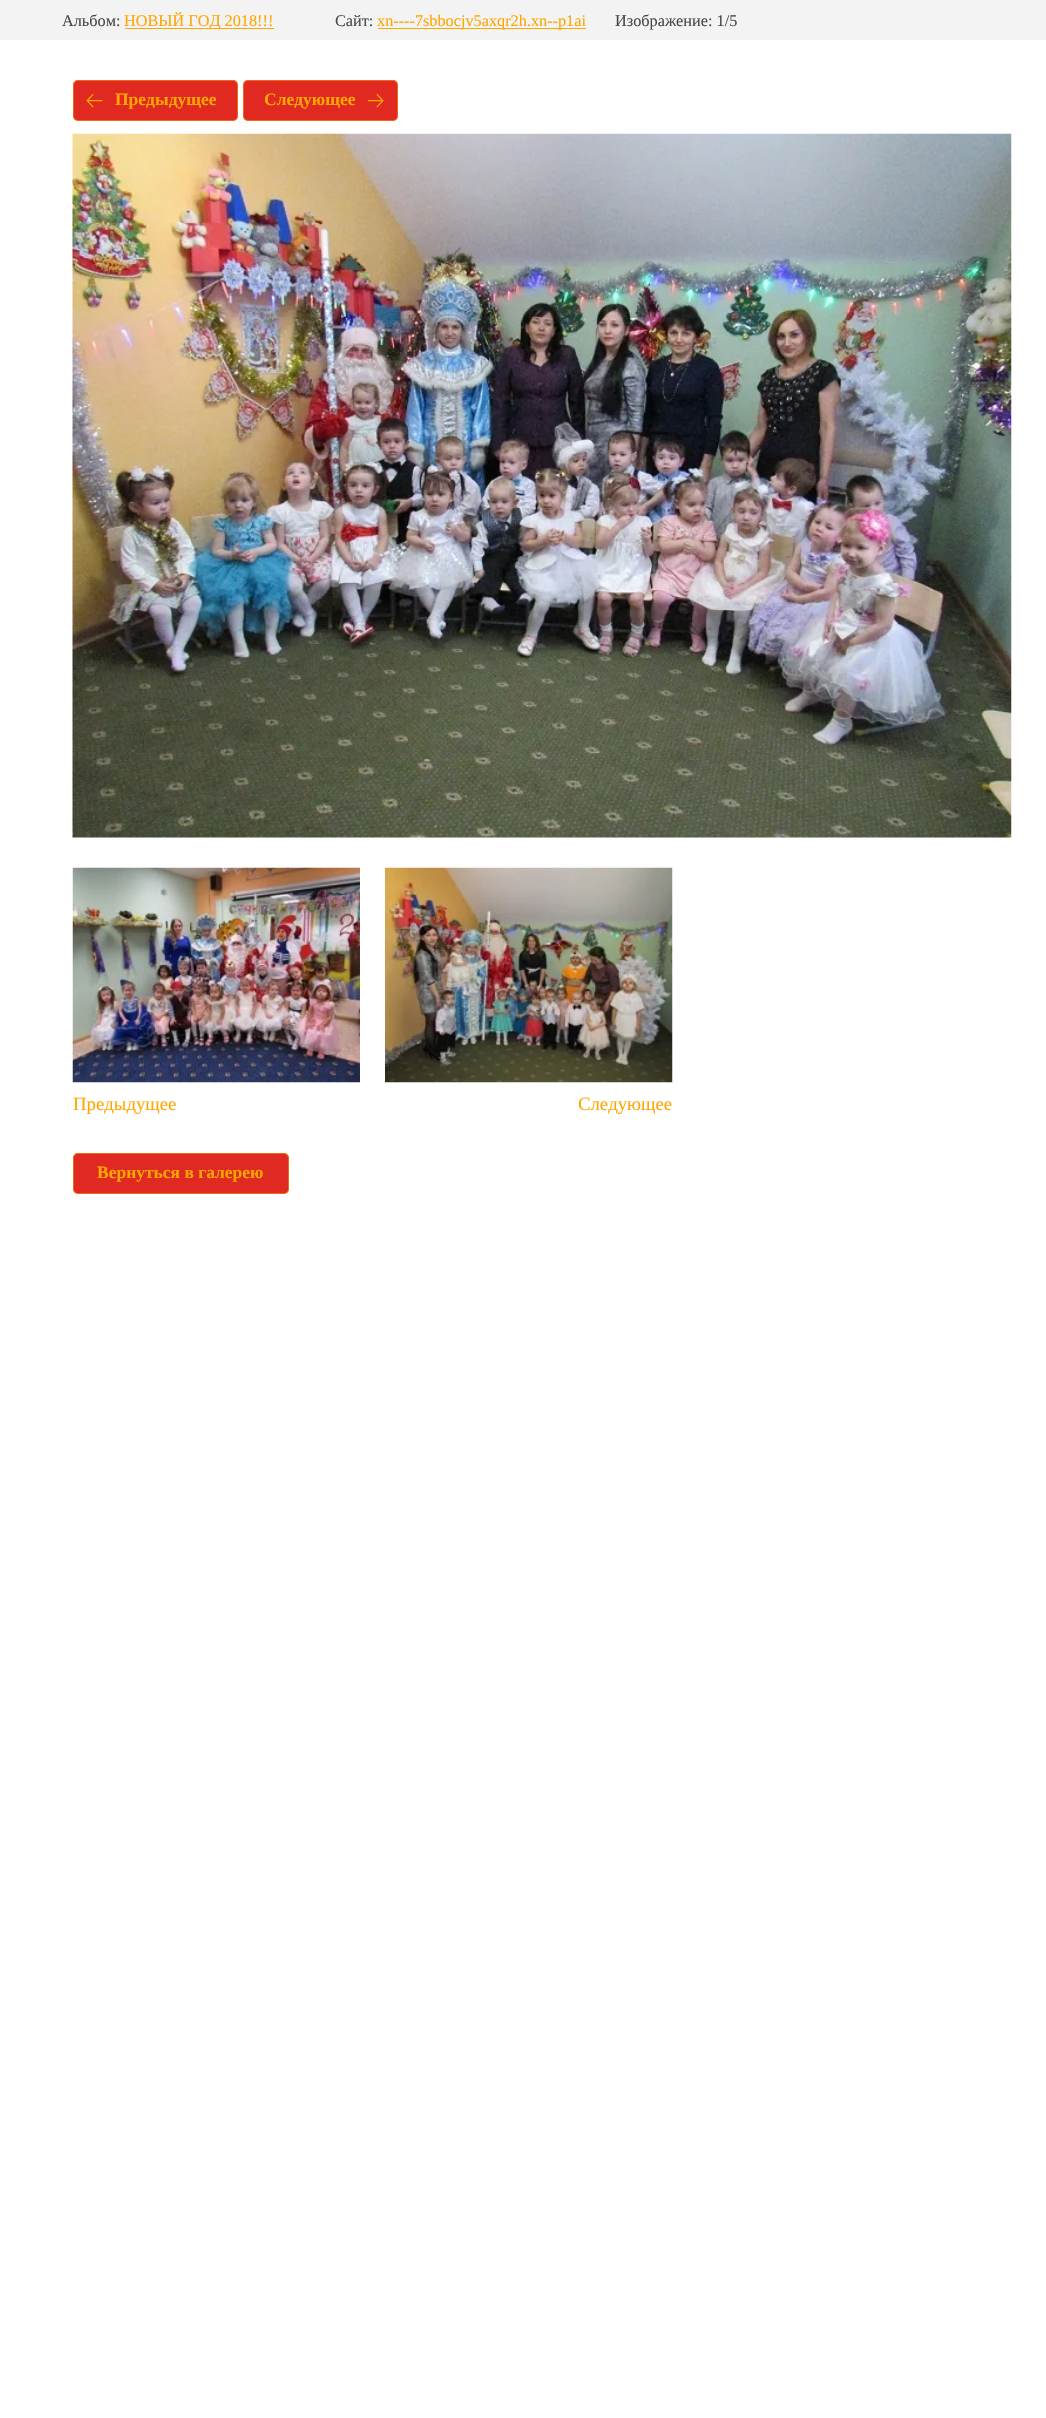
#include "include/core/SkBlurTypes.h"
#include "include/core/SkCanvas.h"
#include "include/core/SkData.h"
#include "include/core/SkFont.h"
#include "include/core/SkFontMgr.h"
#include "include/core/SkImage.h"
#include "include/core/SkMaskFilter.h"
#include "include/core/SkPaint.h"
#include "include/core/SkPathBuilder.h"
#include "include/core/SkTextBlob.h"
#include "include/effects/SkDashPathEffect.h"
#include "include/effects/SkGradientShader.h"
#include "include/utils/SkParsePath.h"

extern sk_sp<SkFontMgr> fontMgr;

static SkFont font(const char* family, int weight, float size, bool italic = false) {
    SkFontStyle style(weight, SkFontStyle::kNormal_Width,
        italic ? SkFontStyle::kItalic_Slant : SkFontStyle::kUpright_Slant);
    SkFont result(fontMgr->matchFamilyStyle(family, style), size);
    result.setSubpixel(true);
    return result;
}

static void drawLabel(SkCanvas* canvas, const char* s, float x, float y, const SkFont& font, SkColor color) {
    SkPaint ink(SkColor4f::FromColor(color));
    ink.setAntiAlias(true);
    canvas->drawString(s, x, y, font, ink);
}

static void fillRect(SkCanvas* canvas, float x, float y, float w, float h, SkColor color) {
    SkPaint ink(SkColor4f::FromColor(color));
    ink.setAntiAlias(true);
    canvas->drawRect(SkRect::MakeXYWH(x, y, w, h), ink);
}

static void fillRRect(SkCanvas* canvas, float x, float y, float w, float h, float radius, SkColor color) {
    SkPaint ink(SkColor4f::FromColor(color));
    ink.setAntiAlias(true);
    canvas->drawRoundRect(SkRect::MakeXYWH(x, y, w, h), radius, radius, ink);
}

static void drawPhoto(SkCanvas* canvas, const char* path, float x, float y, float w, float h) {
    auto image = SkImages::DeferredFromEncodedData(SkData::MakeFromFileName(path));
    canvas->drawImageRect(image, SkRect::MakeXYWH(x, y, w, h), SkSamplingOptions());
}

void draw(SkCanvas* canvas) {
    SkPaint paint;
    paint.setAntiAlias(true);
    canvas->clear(0xFFFFFFFF);
    fillRect(canvas, 0, 0, 1046, 40, 0xFFF3F3F3);
    SkFont font1 = font("Liberation Serif", 400, 16.25f);
    drawLabel(canvas, "Альбом:", 62, 26, font1, 0xFF484848);
    fillRect(canvas, 125, 28, 149, 1, 0xFFFFA601);
    drawLabel(canvas, "НОВЫЙ ГОД 2018!!!", 124, 26, font1, 0xFFFFA601);
    drawLabel(canvas, "Сайт:", 335, 26, font1, 0xFF484848);
    fillRect(canvas, 378, 28, 208, 1, 0xFFFFA601);
    drawLabel(canvas, "xn----7sbbocjv5axqr2h.xn--p1ai", 377, 26, font1, 0xFFFFA601);
    drawLabel(canvas, "Изображение: 1/5", 615, 26, font1, 0xFF484848);
    fillRRect(canvas, 73, 80, 165, 41, 5, 0xFFE02921);
    paint.setStroke(true);
    paint.setStrokeWidth(1);
    paint.setColor(0x80FFA601);
    canvas->drawRoundRect(SkRect::MakeXYWH(73.5f, 80.5f, 164, 40), 4.5f, 4.5f, paint);
    drawPhoto(canvas, "assets/img1.png", 86, 94, 17, 14);
    SkFont font2 = font("Liberation Serif", 700, 17.5f);
    drawLabel(canvas, "Предыдущее", 115, 105, font2, 0xFFFFA601);
    fillRRect(canvas, 243, 80, 155, 41, 5, 0xFFE02921);
    canvas->drawRoundRect(SkRect::MakeXYWH(243.5f, 80.5f, 154, 40), 4.5f, 4.5f, paint);
    drawLabel(canvas, "Следующее", 264, 105, font2, 0xFFFFA601);
    drawPhoto(canvas, "assets/img2.png", 368, 94, 16, 14);
    drawPhoto(canvas, "assets/img3.png", 72, 133, 940, 705);
    drawPhoto(canvas, "assets/img4.png", 72, 867, 288, 216);
    SkFont font3 = font("Liberation Serif", 400, 18.75f);
    drawLabel(canvas, "Предыдущее", 73, 1110, font3, 0xFFFFA601);
    drawPhoto(canvas, "assets/img5.png", 385, 867, 288, 216);
    drawLabel(canvas, "Следующее", 578, 1110, font3, 0xFFFFA601);
    fillRRect(canvas, 73, 1153, 216, 41, 5, 0xFFE02921);
    canvas->drawRoundRect(SkRect::MakeXYWH(73.5f, 1153.5f, 215, 40), 4.5f, 4.5f, paint);
    drawLabel(canvas, "Вернуться в галерею", 97, 1178, font2, 0xFFFFA601);
}
